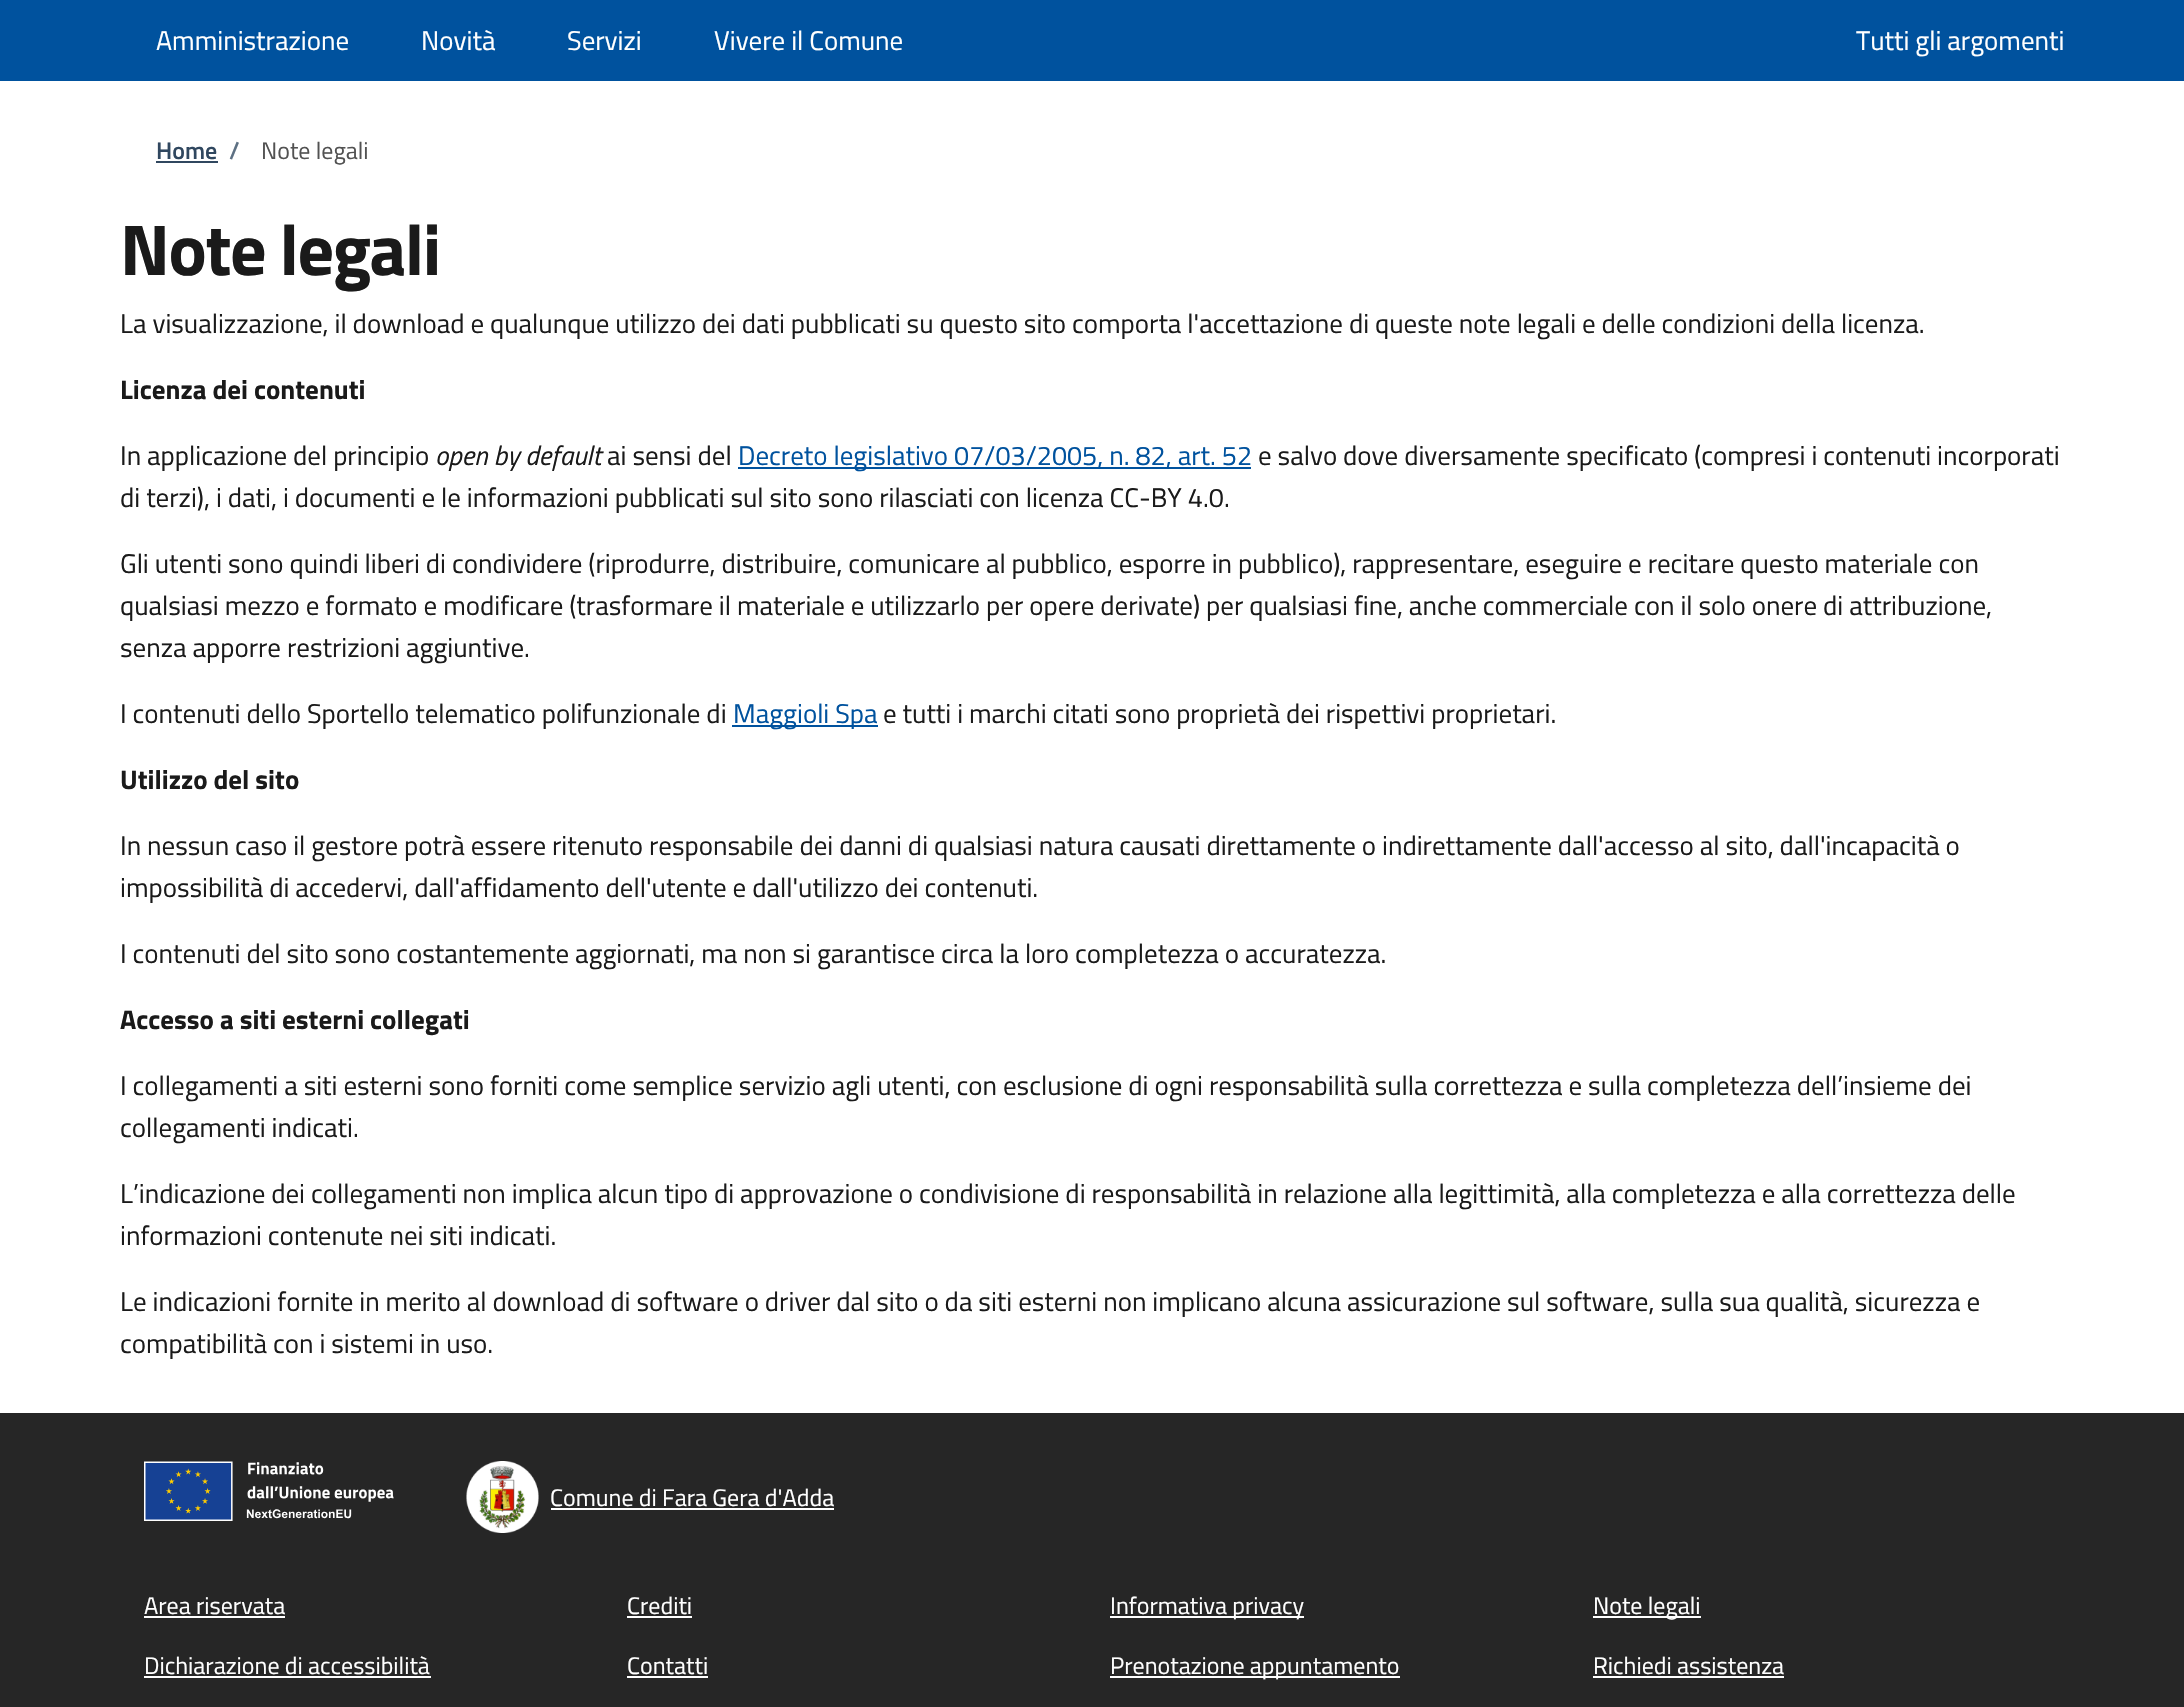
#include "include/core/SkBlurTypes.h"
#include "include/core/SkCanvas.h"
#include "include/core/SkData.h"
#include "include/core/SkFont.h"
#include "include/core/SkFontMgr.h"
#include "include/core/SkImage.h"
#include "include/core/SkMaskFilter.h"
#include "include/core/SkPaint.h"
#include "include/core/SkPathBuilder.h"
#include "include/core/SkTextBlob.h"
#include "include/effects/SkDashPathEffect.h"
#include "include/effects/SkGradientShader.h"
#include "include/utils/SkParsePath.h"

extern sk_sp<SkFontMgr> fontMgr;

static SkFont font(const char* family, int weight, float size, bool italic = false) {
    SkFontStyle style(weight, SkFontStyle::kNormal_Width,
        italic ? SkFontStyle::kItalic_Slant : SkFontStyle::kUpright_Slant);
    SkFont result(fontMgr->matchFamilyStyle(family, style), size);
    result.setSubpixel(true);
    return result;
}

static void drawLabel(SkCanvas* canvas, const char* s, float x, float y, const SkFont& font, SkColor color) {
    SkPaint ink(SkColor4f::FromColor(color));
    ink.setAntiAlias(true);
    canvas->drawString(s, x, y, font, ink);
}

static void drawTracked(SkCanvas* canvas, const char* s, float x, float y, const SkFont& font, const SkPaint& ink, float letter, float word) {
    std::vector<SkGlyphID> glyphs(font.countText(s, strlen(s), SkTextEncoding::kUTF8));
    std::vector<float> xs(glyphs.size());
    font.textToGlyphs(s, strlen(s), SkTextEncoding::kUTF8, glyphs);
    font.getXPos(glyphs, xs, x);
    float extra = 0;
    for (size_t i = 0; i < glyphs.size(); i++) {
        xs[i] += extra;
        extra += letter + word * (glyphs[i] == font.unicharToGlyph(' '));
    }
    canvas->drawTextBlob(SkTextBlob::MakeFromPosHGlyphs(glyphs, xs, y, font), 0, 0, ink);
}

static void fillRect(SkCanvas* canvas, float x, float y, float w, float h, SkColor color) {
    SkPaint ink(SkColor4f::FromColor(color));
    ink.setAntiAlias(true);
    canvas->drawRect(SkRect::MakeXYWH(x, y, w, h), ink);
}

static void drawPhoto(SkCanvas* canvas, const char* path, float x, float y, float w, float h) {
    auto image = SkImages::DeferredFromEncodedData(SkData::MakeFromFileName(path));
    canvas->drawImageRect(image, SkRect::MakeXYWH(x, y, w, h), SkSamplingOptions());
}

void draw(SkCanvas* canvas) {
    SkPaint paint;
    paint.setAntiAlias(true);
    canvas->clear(0xFFFFFFFF);
    fillRect(canvas, 0, 0, 2184, 81, 0xFF00529E);
    SkFont font1 = font("Titillium Web", 400, 27);
    drawLabel(canvas, "Amministrazione", 156, 50, font1, 0xFFFFFFFF);
    drawLabel(canvas, "Novità", 421, 50, font1, 0xFFFFFFFF);
    drawLabel(canvas, "Servizi", 567, 50, font1, 0xFFFFFFFF);
    drawLabel(canvas, "Vivere il Comune", 714, 50, font1, 0xFFFFFFFF);
    drawLabel(canvas, "Tutti gli argomenti", 1856, 50, font1, 0xFFFFFFFF);
    SkFont font2 = font("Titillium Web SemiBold", 600, 24);
    drawLabel(canvas, "Home", 156, 159, font2, 0xFF30475F);
    fillRect(canvas, 156, 161, 62, 2, 0xFF30475F);
    drawLabel(canvas, "/", 229, 159, font2, 0xFF5D7083);
    SkFont font3 = font("Titillium Web", 400, 24);
    drawLabel(canvas, "Note legali", 261, 159, font3, 0xFF525252);
    SkFont font4 = font("Titillium Web", 700, 72);
    paint.setColor(0xFF1A1A1A);
    drawTracked(canvas, "Note legali", 120, 275, font4, paint, -1.5f, 0);
    drawLabel(canvas, "La visualizzazione, il download e qualunque utilizzo dei dati pubblicati su questo sito comporta l'accettazione di queste note legali e delle condizioni della licenza.", 120, 333, font1, 0xFF1A1A1A);
    SkFont font5 = font("Titillium Web", 700, 27);
    drawLabel(canvas, "Licenza dei contenuti", 120, 399, font5, 0xFF1A1A1A);
    drawLabel(canvas, "In applicazione del principio", 120, 465, font1, 0xFF1A1A1A);
    SkFont font6 = font("Titillium Web", 400, 27, true);
    drawLabel(canvas, "open by default", 435, 465, font6, 0xFF1A1A1A);
    drawLabel(canvas, "ai sensi del", 607, 465, font1, 0xFF1A1A1A);
    fillRect(canvas, 738, 467, 513, 2, 0xFF00529E);
    drawLabel(canvas, "Decreto legislativo 07/03/2005, n. 82, art. 52", 738, 465, font1, 0xFF00529E);
    drawLabel(canvas, "e salvo dove diversamente specificato (compresi i contenuti incorporati", 1258, 465, font1, 0xFF1A1A1A);
    drawLabel(canvas, "di terzi), i dati, i documenti e le informazioni pubblicati sul sito sono rilasciati con licenza CC-BY 4.0.", 120, 507, font1, 0xFF1A1A1A);
    drawLabel(canvas, "Gli utenti sono quindi liberi di condividere (riprodurre, distribuire, comunicare al pubblico, esporre in pubblico), rappresentare, eseguire e recitare questo materiale con", 120, 573, font1, 0xFF1A1A1A);
    drawLabel(canvas, "qualsiasi mezzo e formato e modificare (trasformare il materiale e utilizzarlo per opere derivate) per qualsiasi fine, anche commerciale con il solo onere di attribuzione,", 120, 615, font1, 0xFF1A1A1A);
    drawLabel(canvas, "senza apporre restrizioni aggiuntive.", 120, 657, font1, 0xFF1A1A1A);
    drawLabel(canvas, "I contenuti dello Sportello telematico polifunzionale di", 120, 723, font1, 0xFF1A1A1A);
    fillRect(canvas, 732, 725, 146, 2, 0xFF00529E);
    drawLabel(canvas, "Maggioli Spa", 733, 723, font1, 0xFF00529E);
    drawLabel(canvas, "e tutti i marchi citati sono proprietà dei rispettivi proprietari.", 883, 723, font1, 0xFF1A1A1A);
    drawLabel(canvas, "Utilizzo del sito", 120, 789, font5, 0xFF1A1A1A);
    drawLabel(canvas, "In nessun caso il gestore potrà essere ritenuto responsabile dei danni di qualsiasi natura causati direttamente o indirettamente dall'accesso al sito, dall'incapacità o", 120, 855, font1, 0xFF1A1A1A);
    drawLabel(canvas, "impossibilità di accedervi, dall'affidamento dell'utente e dall'utilizzo dei contenuti.", 120, 897, font1, 0xFF1A1A1A);
    drawLabel(canvas, "I contenuti del sito sono costantemente aggiornati, ma non si garantisce circa la loro completezza o accuratezza.", 120, 963, font1, 0xFF1A1A1A);
    drawLabel(canvas, "Accesso a siti esterni collegati", 120, 1029, font5, 0xFF1A1A1A);
    drawLabel(canvas, "I collegamenti a siti esterni sono forniti come semplice servizio agli utenti, con esclusione di ogni responsabilità sulla correttezza e sulla completezza dell’insieme dei", 120, 1095, font1, 0xFF1A1A1A);
    drawLabel(canvas, "collegamenti indicati.", 120, 1137, font1, 0xFF1A1A1A);
    drawLabel(canvas, "L’indicazione dei collegamenti non implica alcun tipo di approvazione o condivisione di responsabilità in relazione alla legittimità, alla completezza e alla correttezza delle", 120, 1203, font1, 0xFF1A1A1A);
    drawLabel(canvas, "informazioni contenute nei siti indicati.", 120, 1245, font1, 0xFF1A1A1A);
    drawLabel(canvas, "Le indicazioni fornite in merito al download di software o driver dal sito o da siti esterni non implicano alcuna assicurazione sul software, sulla sua qualità, sicurezza e", 120, 1311, font1, 0xFF1A1A1A);
    drawLabel(canvas, "compatibilità con i sistemi in uso.", 120, 1353, font1, 0xFF1A1A1A);
    fillRect(canvas, 0, 1413, 2184, 294, 0xFF262626);
    drawPhoto(canvas, "assets/img1.png", 144, 1461, 250, 60);
    drawPhoto(canvas, "assets/img2.png", 466, 1461, 73, 72);
    drawLabel(canvas, "Comune di Fara Gera d'Adda", 550, 1506, font3, 0xFFFFFFFF);
    fillRect(canvas, 551, 1508, 283, 2, 0xFFFFFFFF);
    drawLabel(canvas, "Area riservata", 144, 1614, font3, 0xFFFFFFFF);
    fillRect(canvas, 144, 1616, 141, 2, 0xFFFFFFFF);
    drawLabel(canvas, "Crediti", 627, 1614, font3, 0xFFFFFFFF);
    fillRect(canvas, 627, 1616, 65, 2, 0xFFFFFFFF);
    fillRect(canvas, 1110, 1616, 194, 2, 0xFFFFFFFF);
    drawLabel(canvas, "Informativa privacy", 1110, 1614, font3, 0xFFFFFFFF);
    fillRect(canvas, 1593, 1616, 108, 2, 0xFFFFFFFF);
    drawLabel(canvas, "Note legali", 1593, 1614, font3, 0xFFFFFFFF);
    drawLabel(canvas, "Dichiarazione di accessibilità", 144, 1674, font3, 0xFFFFFFFF);
    fillRect(canvas, 144, 1676, 287, 2, 0xFFFFFFFF);
    drawLabel(canvas, "Contatti", 627, 1674, font3, 0xFFFFFFFF);
    fillRect(canvas, 627, 1676, 81, 2, 0xFFFFFFFF);
    fillRect(canvas, 1110, 1676, 290, 2, 0xFFFFFFFF);
    drawLabel(canvas, "Prenotazione appuntamento", 1110, 1674, font3, 0xFFFFFFFF);
    drawLabel(canvas, "Richiedi assistenza", 1593, 1674, font3, 0xFFFFFFFF);
    fillRect(canvas, 1593, 1676, 191, 2, 0xFFFFFFFF);
}
